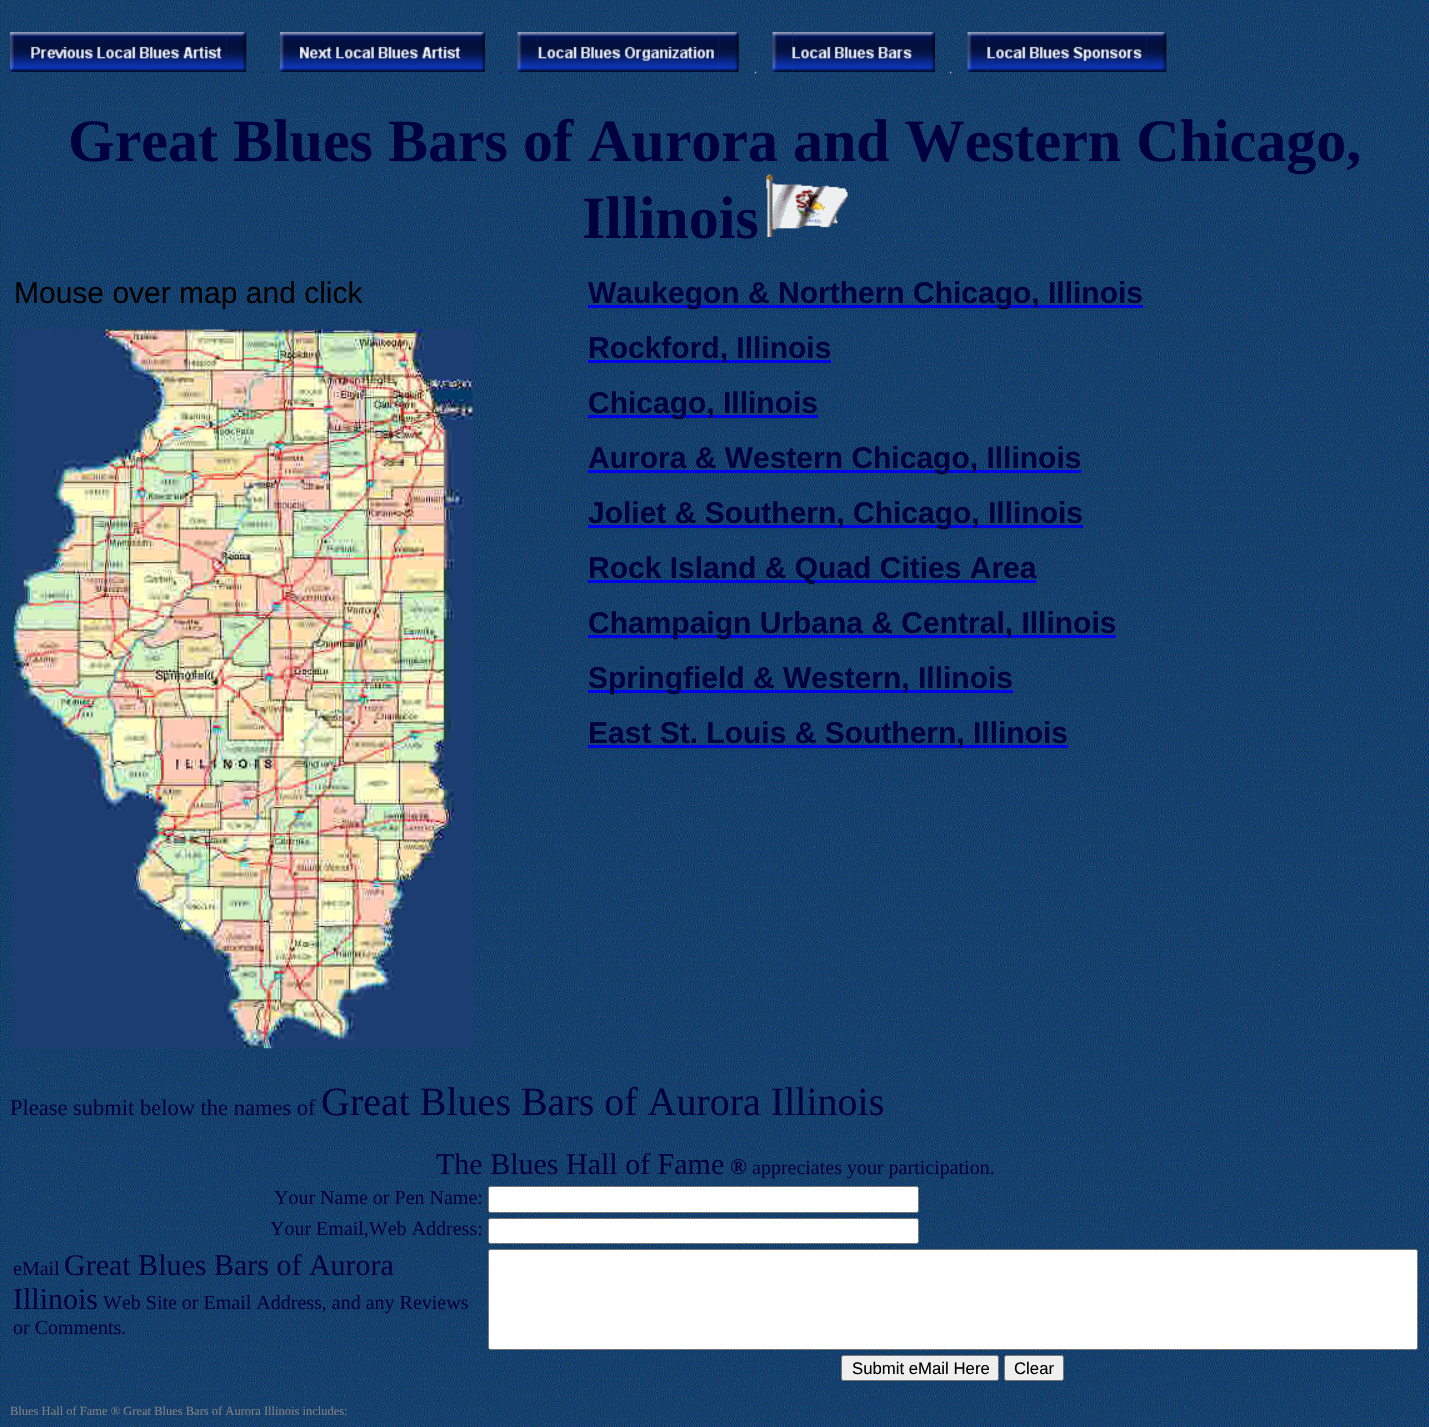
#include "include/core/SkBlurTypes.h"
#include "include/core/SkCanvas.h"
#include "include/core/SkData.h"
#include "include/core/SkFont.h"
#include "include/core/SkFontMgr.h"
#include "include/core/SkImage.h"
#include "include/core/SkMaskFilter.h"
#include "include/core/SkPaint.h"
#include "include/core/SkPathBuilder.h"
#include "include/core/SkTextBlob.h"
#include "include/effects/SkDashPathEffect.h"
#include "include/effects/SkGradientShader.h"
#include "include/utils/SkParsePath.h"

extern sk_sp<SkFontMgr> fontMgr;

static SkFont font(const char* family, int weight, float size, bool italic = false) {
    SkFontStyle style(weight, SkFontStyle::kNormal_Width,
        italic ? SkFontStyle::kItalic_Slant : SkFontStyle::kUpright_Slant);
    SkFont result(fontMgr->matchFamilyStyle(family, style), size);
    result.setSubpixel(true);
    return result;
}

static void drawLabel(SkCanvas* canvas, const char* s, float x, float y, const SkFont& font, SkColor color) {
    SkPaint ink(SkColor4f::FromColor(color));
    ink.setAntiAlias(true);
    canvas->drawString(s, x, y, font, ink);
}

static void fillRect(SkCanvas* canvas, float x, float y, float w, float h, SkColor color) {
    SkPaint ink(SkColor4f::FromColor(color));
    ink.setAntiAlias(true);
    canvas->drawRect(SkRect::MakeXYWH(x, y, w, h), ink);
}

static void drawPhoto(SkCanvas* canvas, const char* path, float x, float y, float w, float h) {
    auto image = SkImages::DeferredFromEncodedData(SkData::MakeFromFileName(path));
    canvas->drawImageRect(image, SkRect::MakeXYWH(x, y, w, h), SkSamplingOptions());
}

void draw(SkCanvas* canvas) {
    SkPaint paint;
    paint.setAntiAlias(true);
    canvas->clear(0xFFFFFFFF);
    drawPhoto(canvas, "assets/img1.png", 0, 0, 1429, 1427);
    drawPhoto(canvas, "assets/img2.png", 10, 32, 20, 40);
    drawPhoto(canvas, "assets/img3.png", 30, 32, 197, 40);
    drawPhoto(canvas, "assets/img4.png", 226, 32, 21, 40);
    drawPhoto(canvas, "assets/img5.png", 280, 32, 20, 40);
    drawPhoto(canvas, "assets/img6.png", 300, 32, 165, 40);
    drawPhoto(canvas, "assets/img7.png", 465, 32, 20, 40);
    drawPhoto(canvas, "assets/img8.png", 517, 32, 21, 40);
    drawPhoto(canvas, "assets/img9.png", 537, 32, 182, 40);
    drawPhoto(canvas, "assets/img10.png", 718, 32, 21, 40);
    drawPhoto(canvas, "assets/img11.png", 772, 32, 21, 40);
    drawPhoto(canvas, "assets/img12.png", 792, 32, 123, 40);
    drawPhoto(canvas, "assets/img13.png", 915, 32, 20, 40);
    drawPhoto(canvas, "assets/img14.png", 967, 32, 21, 40);
    drawPhoto(canvas, "assets/img15.png", 987, 32, 160, 40);
    drawPhoto(canvas, "assets/img16.png", 1146, 32, 21, 40);
    SkFont font1 = font("Liberation Serif", 400, 12.5f);
    drawLabel(canvas, ".", 261, 73, font1, 0xFF0000A0);
    drawLabel(canvas, ".", 499, 73, font1, 0xFF0000A0);
    drawLabel(canvas, ".", 754, 73, font1, 0xFFC0C0C0);
    drawLabel(canvas, ".", 949, 73, font1, 0xFFC0C0C0);
    SkFont font2 = font("Liberation Serif", 700, 60);
    drawLabel(canvas, "Great Blues Bars of Aurora and Western Chicago,", 68, 161, font2, 0xFF000040);
    drawLabel(canvas, "Illinois", 582, 238, font2, 0xFF000040);
    drawPhoto(canvas, "assets/img17.png", 766, 174, 82, 63);
    SkFont font3 = font("Liberation Sans", 400, 30);
    drawLabel(canvas, "Mouse over map and click", 14, 303, font3, 0xFF000000);
    drawPhoto(canvas, "assets/img18.png", 13, 329, 460, 720);
    fillRect(canvas, 588, 305, 555, 3, 0xFF0000EE);
    SkFont font4 = font("Liberation Sans", 700, 30);
    drawLabel(canvas, "Waukegon & Northern Chicago, Illinois", 588, 303, font4, 0xFF000040);
    fillRect(canvas, 588, 360, 243, 3, 0xFF0000EE);
    drawLabel(canvas, "Rockford, Illinois", 588, 358, font4, 0xFF000040);
    fillRect(canvas, 588, 415, 230, 3, 0xFF0000EE);
    drawLabel(canvas, "Chicago, Illinois", 588, 413, font4, 0xFF000040);
    fillRect(canvas, 588, 470, 493, 3, 0xFF0000EE);
    drawLabel(canvas, "Aurora & Western Chicago, Illinois", 588, 468, font4, 0xFF000040);
    fillRect(canvas, 588, 525, 495, 3, 0xFF0000EE);
    drawLabel(canvas, "Joliet & Southern, Chicago, Illinois", 588, 523, font4, 0xFF000040);
    fillRect(canvas, 588, 580, 448, 3, 0xFF0000EE);
    drawLabel(canvas, "Rock Island & Quad Cities Area", 588, 578, font4, 0xFF000040);
    fillRect(canvas, 588, 635, 528, 3, 0xFF0000EE);
    drawLabel(canvas, "Champaign Urbana & Central, Illinois", 588, 633, font4, 0xFF000040);
    fillRect(canvas, 588, 690, 425, 3, 0xFF0000EE);
    drawLabel(canvas, "Springfield & Western, Illinois", 588, 688, font4, 0xFF000040);
    fillRect(canvas, 588, 745, 480, 3, 0xFF0000EE);
    drawLabel(canvas, "East St. Louis & Southern, Illinois", 588, 743, font4, 0xFF000040);
    SkFont font5 = font("Liberation Serif", 400, 22.5f);
    drawLabel(canvas, "Please submit below the names of", 10, 1115, font5, 0xFF000040);
    SkFont font6 = font("Liberation Serif", 400, 40);
    drawLabel(canvas, "Great Blues Bars of Aurora Illinois", 321, 1115, font6, 0xFF000040);
    SkFont font7 = font("Liberation Serif", 400, 30);
    drawLabel(canvas, "The Blues Hall of Fame", 436, 1174, font7, 0xFF000040);
    SkFont font8 = font("Liberation Serif", 700, 22.5f);
    drawLabel(canvas, "®", 730, 1174, font8, 0xFF000040);
    SkFont font9 = font("Liberation Serif", 400, 20);
    drawLabel(canvas, "appreciates your participation.", 752, 1174, font9, 0xFF000040);
    drawLabel(canvas, "Your Name or Pen Name:", 274, 1204, font9, 0xFF000040);
    paint.setColor(0xFFFFFFFF);
    canvas->drawRoundRect(SkRect::MakeXYWH(488.5f, 1186.5f, 430, 26), 2, 2, paint);
    paint.setStroke(true);
    paint.setStrokeWidth(1);
    paint.setColor(0xFF767676);
    canvas->drawRoundRect(SkRect::MakeXYWH(488.5f, 1186.5f, 430, 26), 2, 2, paint);
    drawLabel(canvas, "Your Email,Web Address:", 270, 1235, font9, 0xFF000040);
    paint.setStroke(false);
    paint.setColor(0xFFFFFFFF);
    canvas->drawRoundRect(SkRect::MakeXYWH(488.5f, 1218.5f, 430, 25), 2, 2, paint);
    paint.setStroke(true);
    paint.setColor(0xFF767676);
    canvas->drawRoundRect(SkRect::MakeXYWH(488.5f, 1218.5f, 430, 25), 2, 2, paint);
    drawLabel(canvas, "eMail", 13, 1275, font9, 0xFF000040);
    drawLabel(canvas, "Great Blues Bars of Aurora", 64, 1275, font7, 0xFF000040);
    drawLabel(canvas, "Illinois", 13, 1309, font7, 0xFF000040);
    drawLabel(canvas, "Web Site or Email Address, and any Reviews", 103, 1309, font9, 0xFF000040);
    drawLabel(canvas, "or Comments.", 13, 1334, font9, 0xFF000040);
    paint.setStroke(false);
    paint.setColor(0xFFFFFFFF);
    canvas->drawRoundRect(SkRect::MakeXYWH(488.5f, 1249.5f, 929, 100), 2, 2, paint);
    paint.setStroke(true);
    paint.setColor(0xFF767676);
    canvas->drawRoundRect(SkRect::MakeXYWH(488.5f, 1249.5f, 929, 100), 2, 2, paint);
    paint.setStroke(false);
    paint.setColor(0xFFEFEFEF);
    canvas->drawRoundRect(SkRect::MakeXYWH(841.5f, 1355.5f, 157, 25), 2, 2, paint);
    paint.setStroke(true);
    paint.setColor(0xFF767676);
    canvas->drawRoundRect(SkRect::MakeXYWH(841.5f, 1355.5f, 157, 25), 2, 2, paint);
    SkFont font10 = font("Liberation Sans", 400, 16.75f);
    drawLabel(canvas, "Submit eMail Here", 852, 1374, font10, 0xFF000000);
    paint.setStroke(false);
    paint.setColor(0xFFEFEFEF);
    canvas->drawRoundRect(SkRect::MakeXYWH(1004.5f, 1355.5f, 59, 25), 2, 2, paint);
    paint.setStroke(true);
    paint.setColor(0xFF767676);
    canvas->drawRoundRect(SkRect::MakeXYWH(1004.5f, 1355.5f, 59, 25), 2, 2, paint);
    drawLabel(canvas, "Clear", 1014, 1374, font10, 0xFF000000);
    drawLabel(canvas, "Blues Hall of Fame ® Great Blues Bars of Aurora Illinois includes:", 10, 1415, font1, 0xFF808080);
}
